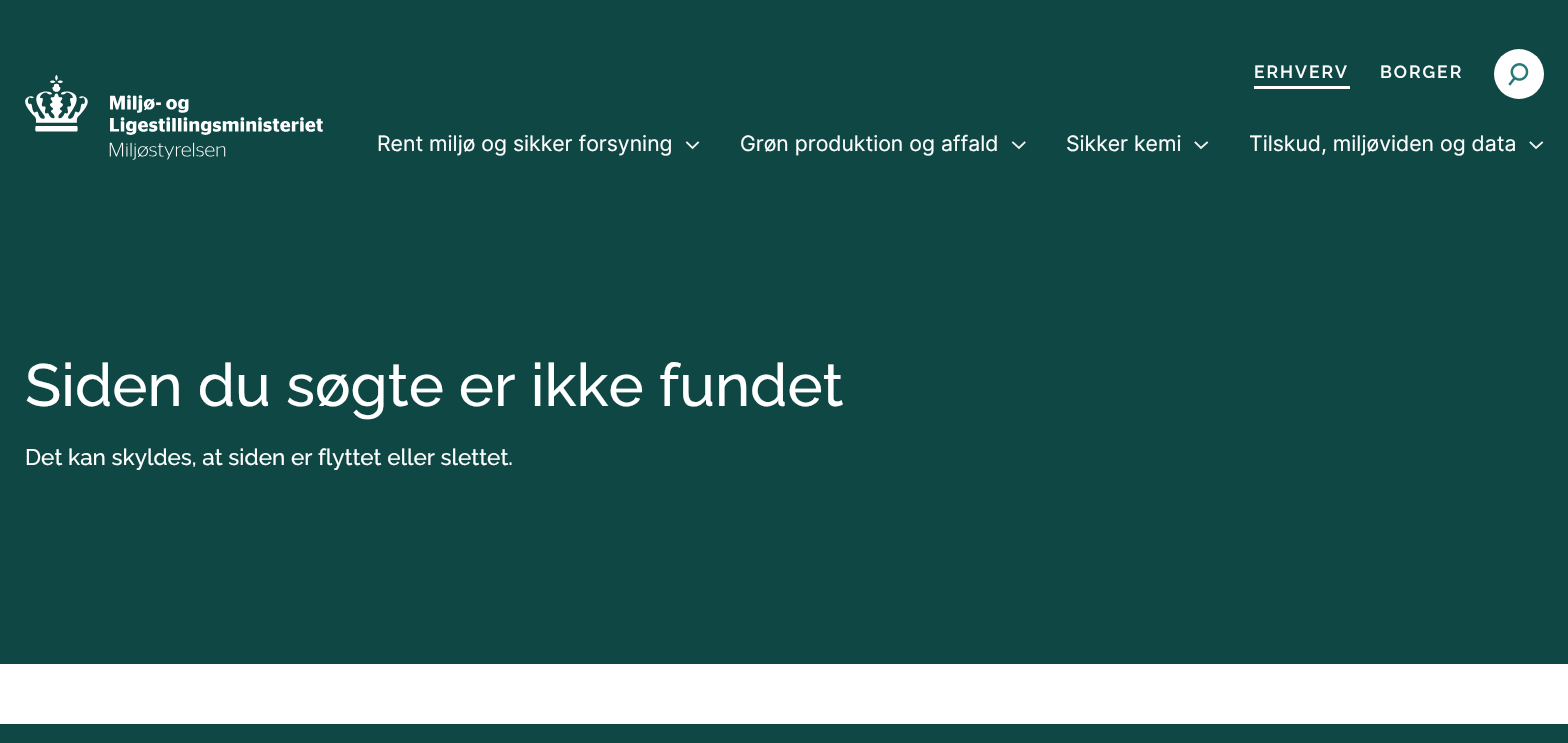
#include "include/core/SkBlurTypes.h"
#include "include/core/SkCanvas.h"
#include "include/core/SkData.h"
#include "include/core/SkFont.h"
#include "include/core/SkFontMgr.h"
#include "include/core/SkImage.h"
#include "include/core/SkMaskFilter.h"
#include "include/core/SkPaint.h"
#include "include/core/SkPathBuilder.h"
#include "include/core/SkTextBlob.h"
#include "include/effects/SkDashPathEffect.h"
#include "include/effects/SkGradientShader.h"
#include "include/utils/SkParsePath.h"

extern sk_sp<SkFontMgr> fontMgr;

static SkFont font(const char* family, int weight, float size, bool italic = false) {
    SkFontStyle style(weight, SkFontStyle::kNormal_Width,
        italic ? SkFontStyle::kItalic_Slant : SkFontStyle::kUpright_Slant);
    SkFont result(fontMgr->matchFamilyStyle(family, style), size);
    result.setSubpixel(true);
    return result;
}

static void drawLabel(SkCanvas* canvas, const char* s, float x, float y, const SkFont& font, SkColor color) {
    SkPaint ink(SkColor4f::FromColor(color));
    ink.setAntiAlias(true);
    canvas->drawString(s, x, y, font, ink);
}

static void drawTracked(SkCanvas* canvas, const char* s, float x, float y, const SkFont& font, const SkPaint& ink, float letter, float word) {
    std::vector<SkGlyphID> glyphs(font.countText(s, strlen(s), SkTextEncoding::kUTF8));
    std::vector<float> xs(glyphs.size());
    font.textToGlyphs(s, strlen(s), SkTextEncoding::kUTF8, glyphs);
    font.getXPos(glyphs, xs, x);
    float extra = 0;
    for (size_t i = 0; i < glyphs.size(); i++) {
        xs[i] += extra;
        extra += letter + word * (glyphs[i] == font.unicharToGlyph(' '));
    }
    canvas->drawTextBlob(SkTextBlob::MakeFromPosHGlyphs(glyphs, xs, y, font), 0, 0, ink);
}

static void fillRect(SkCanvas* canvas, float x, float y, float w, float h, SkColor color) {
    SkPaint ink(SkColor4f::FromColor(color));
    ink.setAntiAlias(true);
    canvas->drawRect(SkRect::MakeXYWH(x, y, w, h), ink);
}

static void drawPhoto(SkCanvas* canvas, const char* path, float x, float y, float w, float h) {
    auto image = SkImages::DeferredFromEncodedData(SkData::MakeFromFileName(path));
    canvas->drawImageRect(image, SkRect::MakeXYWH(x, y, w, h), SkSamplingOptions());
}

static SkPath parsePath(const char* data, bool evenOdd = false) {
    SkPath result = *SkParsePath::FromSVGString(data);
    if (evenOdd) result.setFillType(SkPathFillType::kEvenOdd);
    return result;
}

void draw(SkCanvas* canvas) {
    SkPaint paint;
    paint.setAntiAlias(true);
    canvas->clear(0xFFFFFFFF);
    fillRect(canvas, 0, 0, 1568, 664, 0xFF0E4743);
    drawPhoto(canvas, "assets/img1.png", 25, 75, 298, 85);
    SkFont font1 = font("Raleway", 600, 17.5f, true);
    paint.setColor(0xFFFFFFFF);
    drawTracked(canvas, "ERHVERV", 1254, 78, font1, paint, 2, 0);
    fillRect(canvas, 1254, 86, 96, 3, 0xFFFFFFFF);
    drawTracked(canvas, "BORGER", 1380, 78, font1, paint, 2, 0);
    canvas->drawCircle(1519, 74, 25, paint);
    drawPhoto(canvas, "assets/img2.png", 1508, 63, 21, 23);
    SkFont font2 = font("Inter", 400, 21.25f, true);
    drawLabel(canvas, "Rent miljø og sikker forsyning", 377, 151, font2, 0xFFFFFFFF);
    paint.setStroke(true);
    paint.setStrokeWidth(1.9f);
    paint.setStrokeCap(SkPaint::kSquare_Cap);
    paint.setColor(0xFFF0F5F3);
    canvas->drawPath(parsePath("M698 142.5L692.5 148L687 142.5"), paint);
    drawLabel(canvas, "Grøn produktion og affald", 740, 151, font2, 0xFFFFFFFF);
    canvas->drawPath(parsePath("M1024.5 142.5L1019 148L1013 142.5"), paint);
    drawLabel(canvas, "Sikker kemi", 1066, 151, font2, 0xFFFFFFFF);
    canvas->drawPath(parsePath("M1207 142.5L1201 148L1195.5 142.5"), paint);
    drawLabel(canvas, "Tilskud, miljøviden og data", 1249, 151, font2, 0xFFFFFFFF);
    canvas->drawPath(parsePath("M1542 142.5L1536 148L1530.5 142.5"), paint);
    SkFont font3 = font("Raleway", 500, 59.5f, true);
    drawLabel(canvas, "Siden du søgte er ikke fundet", 25, 406, font3, 0xFFFFFFFF);
    SkFont font4 = font("Raleway", 500, 22.5f, true);
    drawLabel(canvas, "Det kan skyldes, at siden er flyttet eller slettet.", 25, 465, font4, 0xFFFFFFFF);
    fillRect(canvas, 0, 724, 1568, 19, 0xFF0E4743);
}
